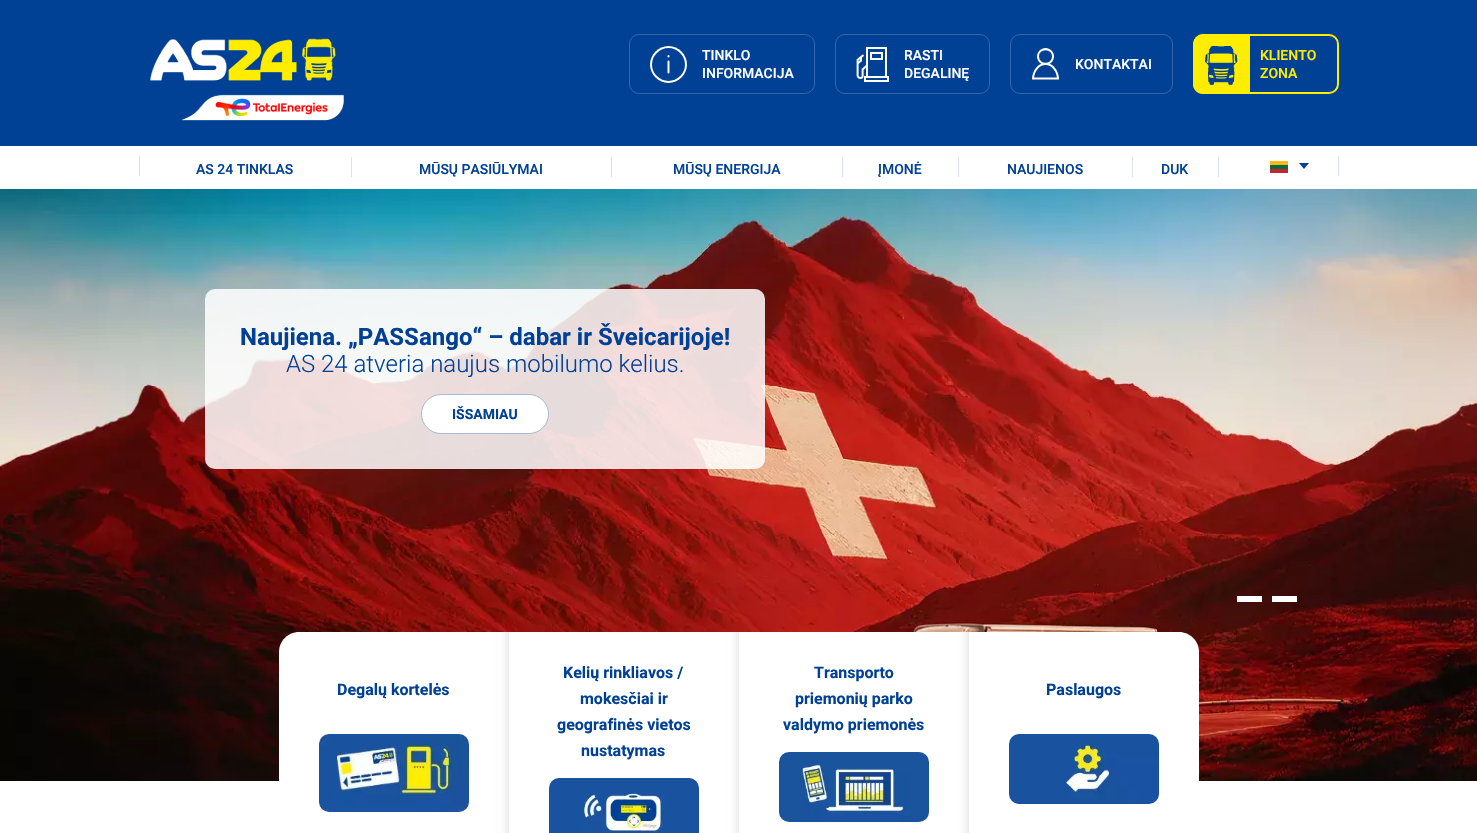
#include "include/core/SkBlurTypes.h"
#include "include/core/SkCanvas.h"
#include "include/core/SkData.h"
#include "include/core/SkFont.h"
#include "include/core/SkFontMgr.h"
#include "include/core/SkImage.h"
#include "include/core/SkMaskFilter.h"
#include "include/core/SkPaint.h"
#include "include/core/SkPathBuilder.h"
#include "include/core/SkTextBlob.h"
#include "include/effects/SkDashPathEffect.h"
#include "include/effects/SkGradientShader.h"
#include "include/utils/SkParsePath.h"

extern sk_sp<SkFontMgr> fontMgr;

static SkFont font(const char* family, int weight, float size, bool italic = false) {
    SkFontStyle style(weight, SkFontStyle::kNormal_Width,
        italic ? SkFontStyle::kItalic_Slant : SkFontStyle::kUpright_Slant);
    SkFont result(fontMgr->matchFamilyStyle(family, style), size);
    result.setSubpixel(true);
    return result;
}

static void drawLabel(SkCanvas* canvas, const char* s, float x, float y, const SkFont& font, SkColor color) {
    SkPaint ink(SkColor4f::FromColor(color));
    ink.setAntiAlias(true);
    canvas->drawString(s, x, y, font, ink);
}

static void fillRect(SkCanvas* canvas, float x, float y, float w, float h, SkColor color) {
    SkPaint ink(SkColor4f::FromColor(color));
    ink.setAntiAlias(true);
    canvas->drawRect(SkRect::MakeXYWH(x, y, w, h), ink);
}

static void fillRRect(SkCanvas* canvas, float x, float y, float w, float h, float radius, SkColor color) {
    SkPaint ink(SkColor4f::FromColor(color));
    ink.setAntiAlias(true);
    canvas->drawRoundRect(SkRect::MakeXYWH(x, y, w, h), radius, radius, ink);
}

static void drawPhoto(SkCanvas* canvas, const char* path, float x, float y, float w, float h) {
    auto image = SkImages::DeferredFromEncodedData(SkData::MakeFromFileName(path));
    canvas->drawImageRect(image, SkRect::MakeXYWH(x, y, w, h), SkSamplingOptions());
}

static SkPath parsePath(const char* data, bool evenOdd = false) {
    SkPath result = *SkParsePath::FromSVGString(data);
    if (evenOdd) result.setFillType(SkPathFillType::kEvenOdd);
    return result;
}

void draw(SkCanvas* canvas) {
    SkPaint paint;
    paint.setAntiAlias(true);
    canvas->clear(0xFFFFFFFF);
    fillRect(canvas, 0, 0, 1477, 146, 0xFF004196);
    drawPhoto(canvas, "assets/img1.png", 150, 38, 194, 83);
    paint.setStroke(true);
    paint.setStrokeWidth(1);
    paint.setColor(0xFF3366AB);
    canvas->drawRoundRect(SkRect::MakeXYWH(629.5f, 34.5f, 185, 59), 9.5f, 9.5f, paint);
    canvas->save();
    canvas->clipPath(parsePath("M650 64.5C650 54.5 658.5 46 668.5 46C678.5 46 687 54.5 687 64.5C687 74.5 678.5 83 668.5 83C658.5 83 650 74.5 650 64.5Z"), true);
    paint.setStrokeWidth(4);
    paint.setColor(0xFFFFFFFF);
    canvas->drawPath(parsePath("M650 64.5C650 54.5 658.5 46 668.5 46C678.5 46 687 54.5 687 64.5C687 74.5 678.5 83 668.5 83C658.5 83 650 74.5 650 64.5Z"), paint);
    canvas->restore();
    paint.setStrokeWidth(2);
    paint.setStrokeCap(SkPaint::kRound_Cap);
    canvas->drawPath(parsePath("M668.5 72.5V61.5M668.5 56.5V56"), paint);
    SkFont font1 = font("Roboto", 500, 14);
    drawLabel(canvas, "TINKLO", 702, 60, font1, 0xFFFFFFFF);
    drawLabel(canvas, "INFORMACIJA", 702, 78, font1, 0xFFFFFFFF);
    paint.setStrokeWidth(1);
    paint.setStrokeCap(SkPaint::kButt_Cap);
    paint.setColor(0xFF3366AB);
    canvas->drawRoundRect(SkRect::MakeXYWH(835.5f, 34.5f, 154, 59), 9.5f, 9.5f, paint);
    drawPhoto(canvas, "assets/img2.png", 856, 47, 33, 35);
    drawLabel(canvas, "RASTI", 904, 60, font1, 0xFFFFFFFF);
    drawLabel(canvas, "DEGALINĘ", 904, 78, font1, 0xFFFFFFFF);
    canvas->drawRoundRect(SkRect::MakeXYWH(1010.5f, 34.5f, 162, 59), 9.5f, 9.5f, paint);
    canvas->save();
    canvas->clipPath(parsePath("M1037 56.5C1037 52 1041 48 1045.5 48C1050 48 1054 52 1054 56.5C1054 61 1050 65 1045.5 65C1041 65 1037 61 1037 56.5Z"), true);
    paint.setStrokeWidth(4);
    paint.setColor(0xFFFFFFFF);
    canvas->drawPath(parsePath("M1037 56.5C1037 45.5 1054 45.5 1054 56.5C1054 67.5 1037 67.5 1037 56.5Z"), paint);
    canvas->restore();
    canvas->save();
    canvas->clipPath(parsePath("M1045.5 63C1053 63 1059 70.5 1059 79.5H1032C1032 70.5 1038 63 1045.5 63Z"), true);
    canvas->drawPath(parsePath("M1045.5 63C1053 63 1059 70.5 1059 79.5H1032C1032 70.5 1038 63 1045.5 63Z"), paint);
    canvas->restore();
    drawLabel(canvas, "KONTAKTAI", 1075, 69, font1, 0xFFFFFFFF);
    paint.setStrokeWidth(2);
    paint.setColor(0xFFFFED00);
    canvas->drawRoundRect(SkRect::MakeXYWH(1194, 35, 144, 58), 9, 9, paint);
    paint.setStroke(false);
    canvas->drawPath(parsePath("M1204 34H1250V94H1203C1197.5 94 1193 89.5 1193 84V45C1193 39 1198 34 1204 34Z"), paint);
    drawPhoto(canvas, "assets/img3.png", 1205, 46, 33, 39);
    drawLabel(canvas, "KLIENTO", 1260, 60, font1, 0xFFFFED00);
    drawLabel(canvas, "ZONA", 1260, 78, font1, 0xFFFFED00);
    fillRect(canvas, 139, 156, 1, 20, 0xFFD9E3EF);
    drawLabel(canvas, "AS 24 TINKLAS", 196, 174, font1, 0xFF004196);
    fillRect(canvas, 351, 157, 1, 20, 0xFFD9E3EF);
    drawLabel(canvas, "MŪSŲ PASIŪLYMAI", 419, 174, font1, 0xFF004196);
    fillRect(canvas, 611, 157, 1, 20, 0xFFD9E3EF);
    drawLabel(canvas, "MŪSŲ ENERGIJA", 673, 174, font1, 0xFF004196);
    fillRect(canvas, 842, 157, 1, 20, 0xFFD9E3EF);
    drawLabel(canvas, "ĮMONĖ", 878, 174, font1, 0xFF004196);
    fillRect(canvas, 958, 157, 1, 20, 0xFFD9E3EF);
    drawLabel(canvas, "NAUJIENOS", 1007, 174, font1, 0xFF004196);
    fillRect(canvas, 1132, 157, 1, 20, 0xFFD9E3EF);
    drawLabel(canvas, "DUK", 1161, 174, font1, 0xFF004196);
    fillRect(canvas, 1218, 157, 1, 20, 0xFFD9E3EF);
    drawPhoto(canvas, "assets/img4.png", 1270, 161, 18, 12);
    paint.setColor(0xFF004196);
    canvas->drawPath(parsePath("M1299 163H1309L1304 169Z"), paint);
    fillRect(canvas, 1338, 156, 1, 20, 0xFFD9E3EF);
    drawPhoto(canvas, "assets/img5.png", 0, 189, 1477, 592);
    fillRRect(canvas, 205, 289, 560, 180, 10, 0xD9FFFFFF);
    SkFont font2 = font("Roboto", 700, 24);
    drawLabel(canvas, "Naujiena. „PASSango“ – dabar ir Šveicarijoje!", 240, 345, font2, 0xFF004196);
    SkFont font3 = font("Roboto", 300, 24);
    drawLabel(canvas, "AS 24 atveria naujus mobilumo kelius.", 286, 372, font3, 0xFF004196);
    paint.setColor(0xFFFFFFFF);
    canvas->drawRoundRect(SkRect::MakeXYWH(421.5f, 394.5f, 127, 39), 19.5f, 19.5f, paint);
    paint.setStroke(true);
    paint.setStrokeWidth(1);
    paint.setColor(0xFFA5BAD3);
    canvas->drawRoundRect(SkRect::MakeXYWH(421.5f, 394.5f, 127, 39), 19.5f, 19.5f, paint);
    SkFont font4 = font("Roboto", 700, 14);
    drawLabel(canvas, "IŠSAMIAU", 452, 419, font4, 0xFF004196);
    fillRect(canvas, 1237, 596, 25, 6, 0xFFFFFFFF);
    fillRect(canvas, 1272, 596, 25, 6, 0xFFFFFFFF);
    paint.setStroke(false);
    paint.setColor(0xFFFFFFFF);
    canvas->drawPath(parsePath("M299 632H509V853H279V652C279 641 288 632 299 632Z"), paint);
    SkFont font5 = font("Roboto", 700, 16);
    drawLabel(canvas, "Degalų kortelės", 337, 695, font5, 0xFF004196);
    drawPhoto(canvas, "assets/img6.png", 319, 734, 150, 78);
    canvas->save();
    canvas->clipPath(parsePath("M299 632H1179C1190 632 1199 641 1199 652V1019H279V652C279 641 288 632 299 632Z"), true);
    paint.setColor(0x26000000);
    paint.setMaskFilter(SkMaskFilter::MakeBlur(kNormal_SkBlurStyle, 5));
    canvas->drawRect(SkRect::MakeXYWH(509, 622, 230, 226), paint);
    paint.setMaskFilter(nullptr);
    canvas->restore();
    fillRect(canvas, 509, 632, 230, 201, 0xFFFFFFFF);
    drawLabel(canvas, "Kelių rinkliavos /", 563, 678, font5, 0xFF004196);
    drawLabel(canvas, "mokesčiai ir", 580, 704, font5, 0xFF004196);
    drawLabel(canvas, "geografinės vietos", 557, 730, font5, 0xFF004196);
    drawLabel(canvas, "nustatymas", 581, 756, font5, 0xFF004196);
    drawPhoto(canvas, "assets/img7.png", 549, 778, 150, 55);
    canvas->save();
    canvas->clipPath(parsePath("M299 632H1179C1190 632 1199 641 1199 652V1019H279V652C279 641 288 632 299 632Z"), true);
    paint.setMaskFilter(SkMaskFilter::MakeBlur(kNormal_SkBlurStyle, 5));
    canvas->drawRect(SkRect::MakeXYWH(739, 622, 230, 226), paint);
    paint.setMaskFilter(nullptr);
    canvas->restore();
    fillRect(canvas, 739, 632, 230, 201, 0xFFFFFFFF);
    drawLabel(canvas, "Transporto", 814, 678, font5, 0xFF004196);
    drawLabel(canvas, "priemonių parko", 795, 704, font5, 0xFF004196);
    drawLabel(canvas, "valdymo priemonės", 783, 730, font5, 0xFF004196);
    drawPhoto(canvas, "assets/img8.png", 779, 752, 150, 70);
    canvas->save();
    canvas->clipPath(parsePath("M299 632H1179C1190 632 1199 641 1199 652V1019H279V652C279 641 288 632 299 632Z"), true);
    paint.setMaskFilter(SkMaskFilter::MakeBlur(kNormal_SkBlurStyle, 5));
    canvas->drawRect(SkRect::MakeXYWH(969, 622, 230, 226), paint);
    paint.setMaskFilter(nullptr);
    canvas->restore();
    paint.setColor(0xFFFFFFFF);
    canvas->drawPath(parsePath("M969 632H1179C1190 632 1199 641 1199 652V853H969Z"), paint);
    drawLabel(canvas, "Paslaugos", 1046, 695, font5, 0xFF004196);
    drawPhoto(canvas, "assets/img9.png", 1009, 734, 150, 70);
}
